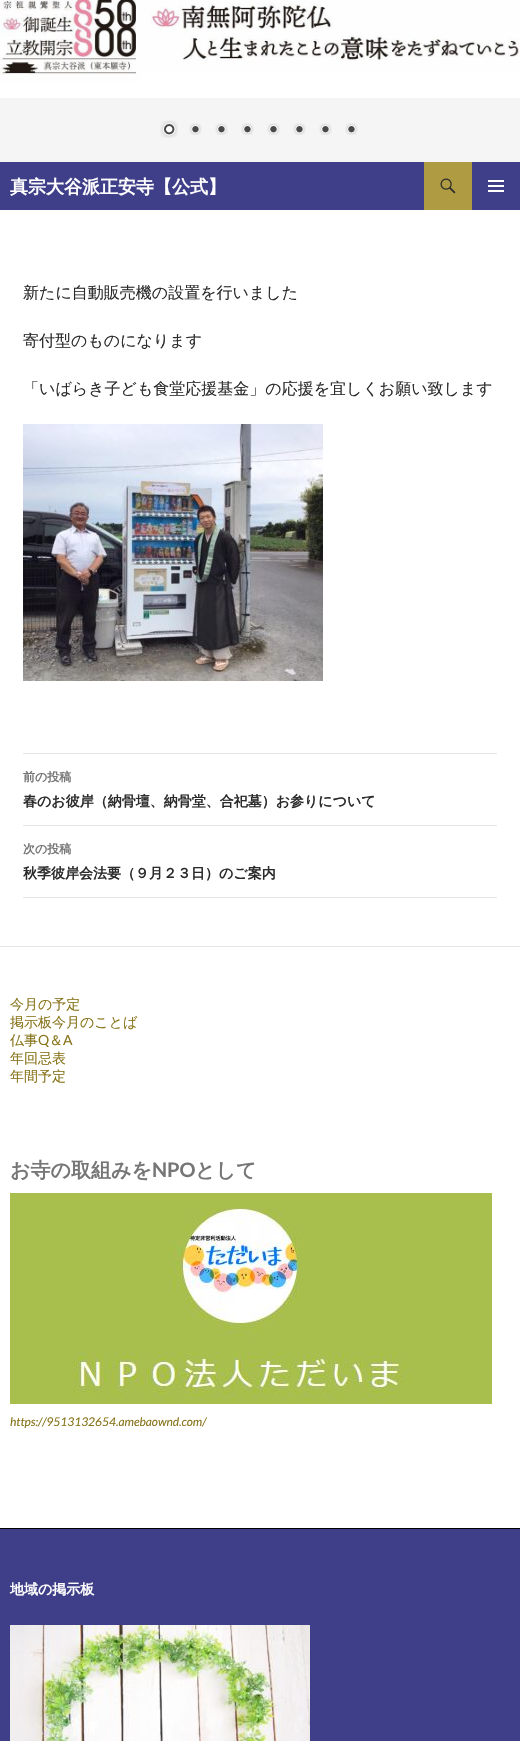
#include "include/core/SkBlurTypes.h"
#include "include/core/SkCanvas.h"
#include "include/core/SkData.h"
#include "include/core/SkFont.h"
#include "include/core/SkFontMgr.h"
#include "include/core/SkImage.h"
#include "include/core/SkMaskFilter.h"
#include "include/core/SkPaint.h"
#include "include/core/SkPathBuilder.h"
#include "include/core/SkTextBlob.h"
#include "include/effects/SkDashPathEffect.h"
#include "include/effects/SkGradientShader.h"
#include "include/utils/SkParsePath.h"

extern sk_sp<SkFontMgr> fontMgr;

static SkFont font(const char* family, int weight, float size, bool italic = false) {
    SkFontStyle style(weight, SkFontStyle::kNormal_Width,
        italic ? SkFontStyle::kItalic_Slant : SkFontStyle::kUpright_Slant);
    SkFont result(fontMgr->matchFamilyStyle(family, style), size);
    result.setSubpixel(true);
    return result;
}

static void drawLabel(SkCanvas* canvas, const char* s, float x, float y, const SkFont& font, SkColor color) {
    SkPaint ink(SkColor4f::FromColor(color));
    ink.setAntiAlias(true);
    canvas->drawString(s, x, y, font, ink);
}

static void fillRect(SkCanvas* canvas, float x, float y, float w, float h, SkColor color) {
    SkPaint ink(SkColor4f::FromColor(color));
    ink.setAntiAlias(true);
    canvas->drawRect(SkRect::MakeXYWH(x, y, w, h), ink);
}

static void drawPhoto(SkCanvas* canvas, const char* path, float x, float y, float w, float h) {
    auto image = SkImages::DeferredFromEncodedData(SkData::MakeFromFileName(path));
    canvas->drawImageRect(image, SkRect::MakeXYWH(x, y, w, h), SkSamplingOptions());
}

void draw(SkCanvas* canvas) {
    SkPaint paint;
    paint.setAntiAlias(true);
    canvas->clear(0xFFF5F5F5);
    drawPhoto(canvas, "assets/img1.png", 0, 0, 520, 98);
    drawPhoto(canvas, "assets/img2.png", 160, 120, 18, 18);
    drawPhoto(canvas, "assets/img3.png", 189, 123, 13, 12);
    drawPhoto(canvas, "assets/img3.png", 215, 123, 13, 12);
    drawPhoto(canvas, "assets/img3.png", 241, 123, 13, 12);
    drawPhoto(canvas, "assets/img3.png", 267, 123, 13, 12);
    drawPhoto(canvas, "assets/img3.png", 293, 123, 13, 12);
    drawPhoto(canvas, "assets/img3.png", 319, 123, 13, 12);
    drawPhoto(canvas, "assets/img3.png", 345, 123, 13, 12);
    fillRect(canvas, 0, 210, 520, 1318, 0xFFFFFFFF);
    fillRect(canvas, 0, 162, 520, 48, 0xFF3F3F89);
    SkFont font1 = font("WenQuanYi Zen Hei", 700, 18);
    drawLabel(canvas, "真宗大谷派正安寺【公式】", 10, 193, font1, 0xFFFFFFFF);
    fillRect(canvas, 424, 162, 48, 48, 0xFFAF9B41);
    drawPhoto(canvas, "assets/img4.png", 440, 178, 16, 16);
    drawPhoto(canvas, "assets/img5.png", 488, 180, 16, 12);
    SkFont font2 = font("WenQuanYi Zen Hei", 500, 16);
    drawLabel(canvas, "新たに自動販売機の設置を行いました", 23, 298, font2, 0xFF2B2B2B);
    drawLabel(canvas, "寄付型のものになります", 23, 346, font2, 0xFF2B2B2B);
    drawLabel(canvas, "「いばらき子ども食堂応援基金」の応援を宜しくお願い致します", 23, 394, font2, 0xFF2B2B2B);
    drawPhoto(canvas, "assets/img6.png", 23, 424, 300, 257);
    fillRect(canvas, 23, 753, 474, 1, 0xFFE6E6E6);
    fillRect(canvas, 23, 825, 474, 1, 0xFFE6E6E6);
    SkFont font3 = font("WenQuanYi Zen Hei", 700, 12);
    drawLabel(canvas, "前の投稿", 23, 781, font3, 0xFF767676);
    SkFont font4 = font("WenQuanYi Zen Hei", 700, 14);
    drawLabel(canvas, "春のお彼岸（納骨壇、納骨堂、合祀墓）お参りについて", 23, 806, font4, 0xFF2B2B2B);
    fillRect(canvas, 23, 897, 474, 1, 0xFFE6E6E6);
    drawLabel(canvas, "次の投稿", 23, 853, font3, 0xFF767676);
    drawLabel(canvas, "秋季彼岸会法要（９月２３日）のご案内", 23, 878, font4, 0xFF2B2B2B);
    fillRect(canvas, 0, 946, 520, 1, 0xFFE6E6E6);
    SkFont font5 = font("WenQuanYi Zen Hei", 500, 14);
    drawLabel(canvas, "今月の予定", 10, 1009, font5, 0xFF877319);
    drawLabel(canvas, "掲示板今月のことば", 10, 1027, font5, 0xFF877319);
    drawLabel(canvas, "仏事", 10, 1045, font5, 0xFF877319);
    SkFont font6 = font("Lato", 400, 14);
    drawLabel(canvas, "Q", 38, 1045, font6, 0xFF877319);
    drawLabel(canvas, "＆", 49, 1045, font5, 0xFF877319);
    drawLabel(canvas, "A", 63, 1045, font6, 0xFF877319);
    drawLabel(canvas, "年回忌表", 10, 1063, font5, 0xFF877319);
    drawLabel(canvas, "年間予定", 10, 1081, font5, 0xFF877319);
    SkFont font7 = font("WenQuanYi Zen Hei", 700, 20);
    drawLabel(canvas, "お寺の取組みを", 10, 1177, font7, 0xFF767676);
    SkFont font8 = font("Lato", 700, 20);
    drawLabel(canvas, "NPO", 152, 1177, font8, 0xFF767676);
    drawLabel(canvas, "として", 195, 1177, font7, 0xFF767676);
    drawPhoto(canvas, "assets/img7.png", 10, 1193, 482, 211);
    SkFont font9 = font("Lato", 400, 12, true);
    drawLabel(canvas, "https://9513132654.amebaownd.com/", 10, 1426, font9, 0xFF877319);
    fillRect(canvas, 0, 1529, 520, 212, 0xFF3F3F89);
    fillRect(canvas, 0, 1528, 520, 1, 0xFF000000);
    drawLabel(canvas, "地域の掲示板", 10, 1594, font4, 0xFFFFFFFF);
    drawPhoto(canvas, "assets/img8.png", 10, 1625, 300, 116);
}
